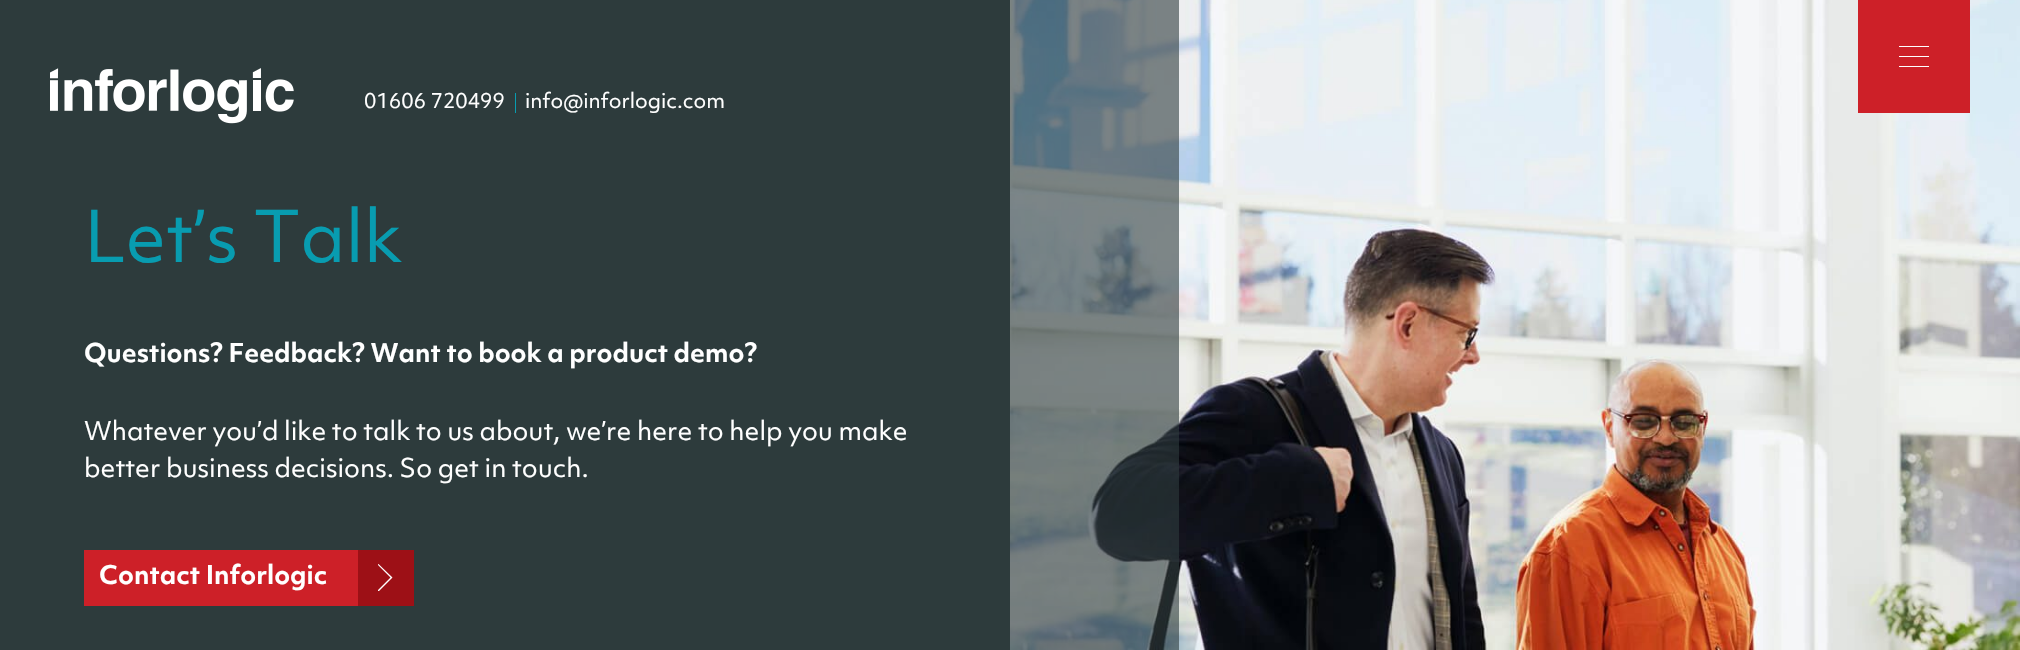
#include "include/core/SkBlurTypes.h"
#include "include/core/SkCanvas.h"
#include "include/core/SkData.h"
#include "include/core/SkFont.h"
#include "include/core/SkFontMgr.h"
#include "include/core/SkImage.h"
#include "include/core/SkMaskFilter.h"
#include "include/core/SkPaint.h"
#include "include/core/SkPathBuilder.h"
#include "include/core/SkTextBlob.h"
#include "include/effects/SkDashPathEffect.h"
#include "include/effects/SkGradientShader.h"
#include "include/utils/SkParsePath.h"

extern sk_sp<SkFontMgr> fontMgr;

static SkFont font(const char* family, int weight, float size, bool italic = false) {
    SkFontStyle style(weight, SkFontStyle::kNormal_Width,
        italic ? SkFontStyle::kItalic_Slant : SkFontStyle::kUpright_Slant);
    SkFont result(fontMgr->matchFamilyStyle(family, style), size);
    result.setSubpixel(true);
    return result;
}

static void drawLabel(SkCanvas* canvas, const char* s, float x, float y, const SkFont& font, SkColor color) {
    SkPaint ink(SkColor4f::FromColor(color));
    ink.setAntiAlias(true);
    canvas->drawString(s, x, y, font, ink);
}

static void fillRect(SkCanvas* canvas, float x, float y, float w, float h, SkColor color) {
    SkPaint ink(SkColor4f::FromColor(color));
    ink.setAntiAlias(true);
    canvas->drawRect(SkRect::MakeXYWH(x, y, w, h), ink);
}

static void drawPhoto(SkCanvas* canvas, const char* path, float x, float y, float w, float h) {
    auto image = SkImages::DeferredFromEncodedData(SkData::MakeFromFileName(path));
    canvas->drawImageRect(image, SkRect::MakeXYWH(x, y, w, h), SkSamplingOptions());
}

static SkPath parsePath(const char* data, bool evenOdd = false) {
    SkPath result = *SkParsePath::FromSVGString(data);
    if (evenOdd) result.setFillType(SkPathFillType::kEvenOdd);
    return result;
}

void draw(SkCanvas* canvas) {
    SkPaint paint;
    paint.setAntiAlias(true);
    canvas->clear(0xFFFFFFFF);
    fillRect(canvas, 0, 0, 1010, 650, 0xFF2D3B3C);
    drawPhoto(canvas, "assets/img1.png", 50, 68, 244, 56);
    SkFont font1 = font("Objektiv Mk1", 400, 20);
    drawLabel(canvas, "01606 720499", 364, 108, font1, 0xFFFFFFFF);
    fillRect(canvas, 515, 93, 1, 20, 0xFF089CB0);
    drawLabel(canvas, "info@inforlogic.com", 525, 108, font1, 0xFFFFFFFF);
    drawPhoto(canvas, "assets/img2.png", 1010, 0, 1010, 650);
    fillRect(canvas, 1858, 0, 112, 113, 0xFFCD2028);
    fillRect(canvas, 1899, 56, 30, 1, 0xFFFFFFFF);
    fillRect(canvas, 1899, 46, 30, 1, 0xFFFFFFFF);
    fillRect(canvas, 1899, 66, 30, 1, 0xFFFFFFFF);
    SkFont font2 = font("Objektiv Mk1", 400, 68.75f);
    drawLabel(canvas, "Let’s Talk", 84, 262, font2, 0xFF089CB0);
    SkFont font3 = font("Objektiv Mk1", 700, 25);
    drawLabel(canvas, "Questions? Feedback? Want to book a product demo?", 84, 362, font3, 0xFFFFFFFF);
    SkFont font4 = font("Objektiv Mk1", 400, 25);
    drawLabel(canvas, "Whatever you’d like to talk to us about, we’re here to help you make", 84, 440, font4, 0xFFFFFFFF);
    drawLabel(canvas, "better business decisions. So get in touch.", 84, 477, font4, 0xFFFFFFFF);
    fillRect(canvas, 84, 550, 274, 56, 0xFFCD2028);
    drawLabel(canvas, "Contact Inforlogic", 99, 584, font3, 0xFFFFFFFF);
    fillRect(canvas, 358, 550, 56, 56, 0xFF9D1016);
    canvas->save();
    canvas->clipRect(SkRect::MakeXYWH(378, 564, 15, 27));
    paint.setColor(0xFFFFFFFF);
    canvas->drawPath(parsePath("M378.5 591.5L377.5 590.5L390.5 577.5L377.5 564.5L378.5 564L392.5 577.5Z"), paint);
    canvas->restore();
    fillRect(canvas, 1010, 0, 169, 650, 0x992D3B3C);
}
